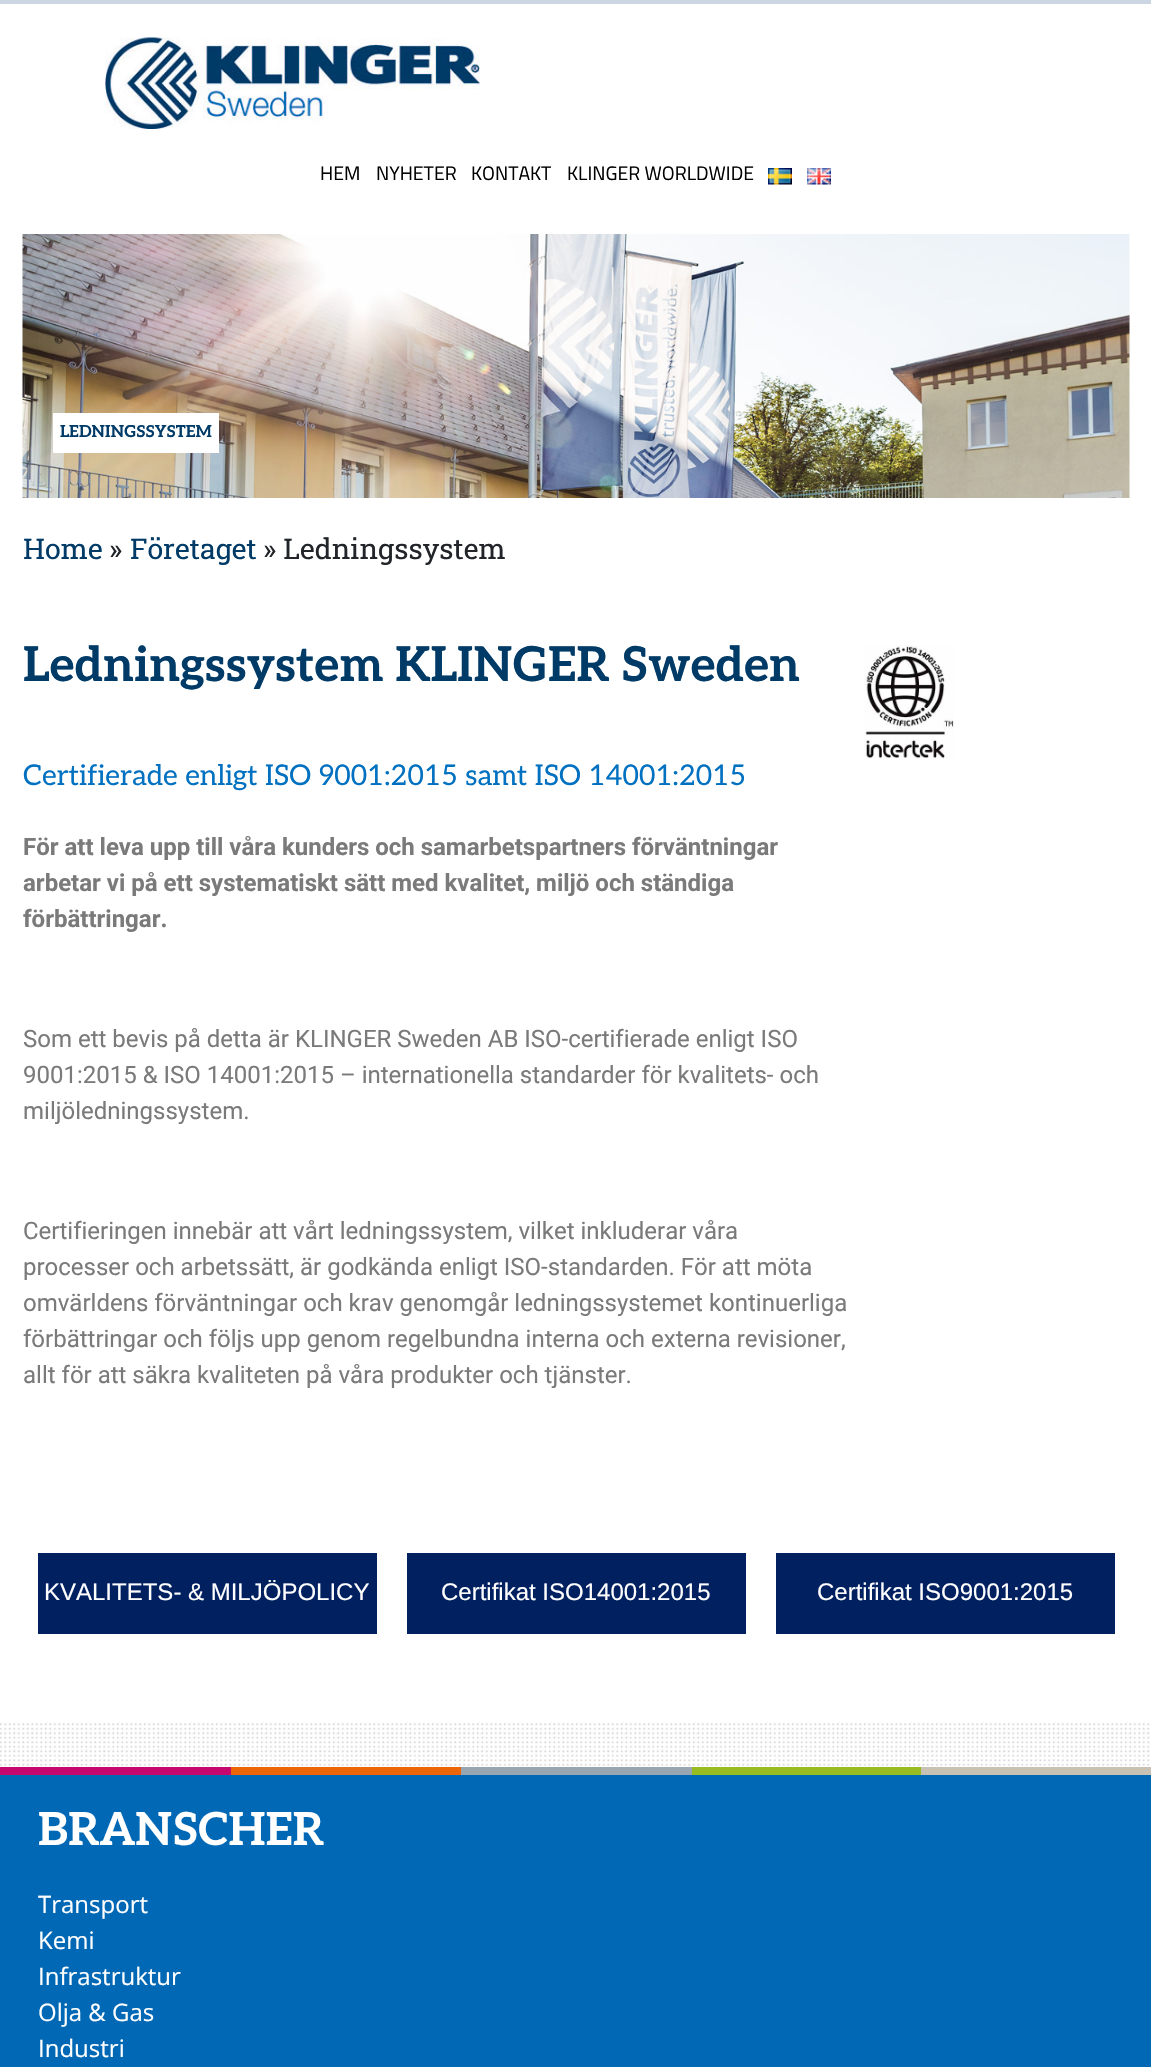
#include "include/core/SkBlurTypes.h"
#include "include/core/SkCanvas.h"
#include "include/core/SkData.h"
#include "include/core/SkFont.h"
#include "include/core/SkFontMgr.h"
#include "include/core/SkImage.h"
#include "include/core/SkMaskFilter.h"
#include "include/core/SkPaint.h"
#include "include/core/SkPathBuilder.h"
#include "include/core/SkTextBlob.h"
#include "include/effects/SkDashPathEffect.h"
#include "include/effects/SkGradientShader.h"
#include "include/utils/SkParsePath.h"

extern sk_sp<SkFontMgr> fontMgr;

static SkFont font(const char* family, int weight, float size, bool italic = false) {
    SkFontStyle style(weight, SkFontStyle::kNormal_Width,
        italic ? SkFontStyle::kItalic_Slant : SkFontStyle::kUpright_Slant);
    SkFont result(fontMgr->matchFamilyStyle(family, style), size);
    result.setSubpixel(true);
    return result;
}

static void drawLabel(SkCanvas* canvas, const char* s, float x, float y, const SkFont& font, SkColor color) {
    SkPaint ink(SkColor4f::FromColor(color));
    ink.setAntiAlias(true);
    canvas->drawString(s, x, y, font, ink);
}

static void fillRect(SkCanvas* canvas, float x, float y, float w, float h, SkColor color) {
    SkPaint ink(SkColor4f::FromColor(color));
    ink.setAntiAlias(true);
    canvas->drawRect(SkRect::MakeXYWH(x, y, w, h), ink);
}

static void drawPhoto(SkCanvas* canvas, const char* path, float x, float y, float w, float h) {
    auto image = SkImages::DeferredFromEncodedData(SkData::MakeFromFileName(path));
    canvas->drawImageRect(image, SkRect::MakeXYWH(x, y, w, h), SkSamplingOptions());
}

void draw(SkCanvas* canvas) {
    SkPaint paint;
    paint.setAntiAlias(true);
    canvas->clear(0xFFFFFFFF);
    fillRect(canvas, 0, 0, 1151, 4, 0xFFCBD6E2);
    drawPhoto(canvas, "assets/img1.png", 0, 1722, 1150, 45);
    drawPhoto(canvas, "assets/img2.png", 105, 37, 375, 92);
    SkFont font1 = font("Titillium Web", 400, 19.5f);
    drawLabel(canvas, "HEM", 320, 180, font1, 0xFF000000);
    drawLabel(canvas, "NYHETER", 376, 180, font1, 0xFF000000);
    drawLabel(canvas, "KONTAKT", 471, 180, font1, 0xFF000000);
    drawLabel(canvas, "KLINGER WORLDWIDE", 567, 180, font1, 0xFF000000);
    drawPhoto(canvas, "assets/img3.png", 768, 168, 24, 17);
    drawPhoto(canvas, "assets/img4.png", 807, 168, 24, 17);
    drawPhoto(canvas, "assets/img5.png", 22, 234, 1108, 264);
    fillRect(canvas, 53, 413, 166, 40, 0xFFFFFFFF);
    SkFont font2 = font("Aleo", 700, 16.5f);
    drawLabel(canvas, "LEDNINGSSYSTEM", 60, 437, font2, 0xFF003A67);
    SkFont font3 = font("Roboto Slab", 400, 28.5f);
    drawLabel(canvas, "Home", 23, 559, font3, 0xFF003A67);
    drawLabel(canvas, "»", 109, 559, font3, 0xFF212529);
    drawLabel(canvas, "Företaget", 130, 559, font3, 0xFF003A67);
    drawLabel(canvas, "» Ledningssystem", 263, 559, font3, 0xFF212529);
    SkFont font4 = font("Aleo", 700, 48);
    drawLabel(canvas, "Ledningssystem KLINGER Sweden", 23, 681, font4, 0xFF003A67);
    SkFont font5 = font("Aleo", 400, 28.5f);
    drawLabel(canvas, "Certifierade enligt ISO 9001:2015 samt ISO 14001:2015", 23, 785, font5, 0xFF0070C0);
    SkFont font6 = font("Roboto", 700, 24);
    drawLabel(canvas, "För att leva upp till våra kunders och samarbetspartners förväntningar", 23, 855, font6, 0xFF7A7A7A);
    drawLabel(canvas, "arbetar vi på ett systematiskt sätt med kvalitet, miljö och ständiga", 23, 891, font6, 0xFF7A7A7A);
    canvas->save();
    canvas->clipRect(SkRect::MakeXYWH(23, 630, 1107, 818));
    drawLabel(canvas, "förbättringar.", 23, 927, font6, 0xFF7A7A7A);
    canvas->restore();
    SkFont font7 = font("Roboto", 400, 24);
    drawLabel(canvas, "Som ett bevis på detta är KLINGER Sweden AB ISO-certifierade enligt ISO", 23, 1047, font7, 0xFF7A7A7A);
    drawLabel(canvas, "9001:2015 & ISO 14001:2015 – internationella standarder för kvalitets- och", 23, 1083, font7, 0xFF7A7A7A);
    drawLabel(canvas, "miljöledningssystem.", 23, 1119, font7, 0xFF7A7A7A);
    drawLabel(canvas, "Certifieringen innebär att vårt ledningssystem, vilket inkluderar våra", 23, 1239, font7, 0xFF7A7A7A);
    drawLabel(canvas, "processer och arbetssätt, är godkända enligt ISO-standarden. För att möta", 23, 1275, font7, 0xFF7A7A7A);
    drawLabel(canvas, "omvärldens förväntningar och krav genomgår ledningssystemet kontinuerliga", 23, 1311, font7, 0xFF7A7A7A);
    drawLabel(canvas, "förbättringar och följs upp genom regelbundna interna och externa revisioner,", 23, 1347, font7, 0xFF7A7A7A);
    drawLabel(canvas, "allt för att säkra kvaliteten på våra produkter och tjänster.", 23, 1383, font7, 0xFF7A7A7A);
    drawPhoto(canvas, "assets/img6.png", 864, 645, 90, 114);
    fillRect(canvas, 38, 1553, 339, 81, 0xFF002060);
    SkFont font8 = font("Liberation Sans", 400, 24);
    drawLabel(canvas, "KVALITETS- & MILJÖPOLICY", 44, 1600, font8, 0xFFFFFFFF);
    fillRect(canvas, 407, 1553, 339, 81, 0xFF002060);
    drawLabel(canvas, "Certifikat ISO14001:2015", 441, 1600, font8, 0xFFFFFFFF);
    fillRect(canvas, 776, 1553, 339, 81, 0xFF002060);
    drawLabel(canvas, "Certifikat ISO9001:2015", 817, 1600, font8, 0xFFFFFFFF);
    fillRect(canvas, 0, 1775, 1151, 292, 0xFF0168B5);
    fillRect(canvas, 0, 1767, 231, 8, 0xFFC6076E);
    fillRect(canvas, 231, 1767, 230, 8, 0xFFEC6607);
    fillRect(canvas, 461, 1767, 231, 8, 0xFF98A6B1);
    fillRect(canvas, 692, 1767, 229, 8, 0xFF98BB21);
    fillRect(canvas, 921, 1767, 230, 8, 0xFFC8C2B4);
    SkFont font9 = font("Aleo", 700, 45.5f);
    drawLabel(canvas, "BRANSCHER", 38, 1845, font9, 0xFFFFFFFF);
    SkFont font10 = font("Open Sans", 400, 24);
    drawLabel(canvas, "Transport", 38, 1913, font10, 0xFFFFFFFF);
    drawLabel(canvas, "Kemi", 38, 1949, font10, 0xFFFFFFFF);
    drawLabel(canvas, "Infrastruktur", 38, 1985, font10, 0xFFFFFFFF);
    drawLabel(canvas, "Olja & Gas", 38, 2021, font10, 0xFFFFFFFF);
    drawLabel(canvas, "Industri", 38, 2057, font10, 0xFFFFFFFF);
}
